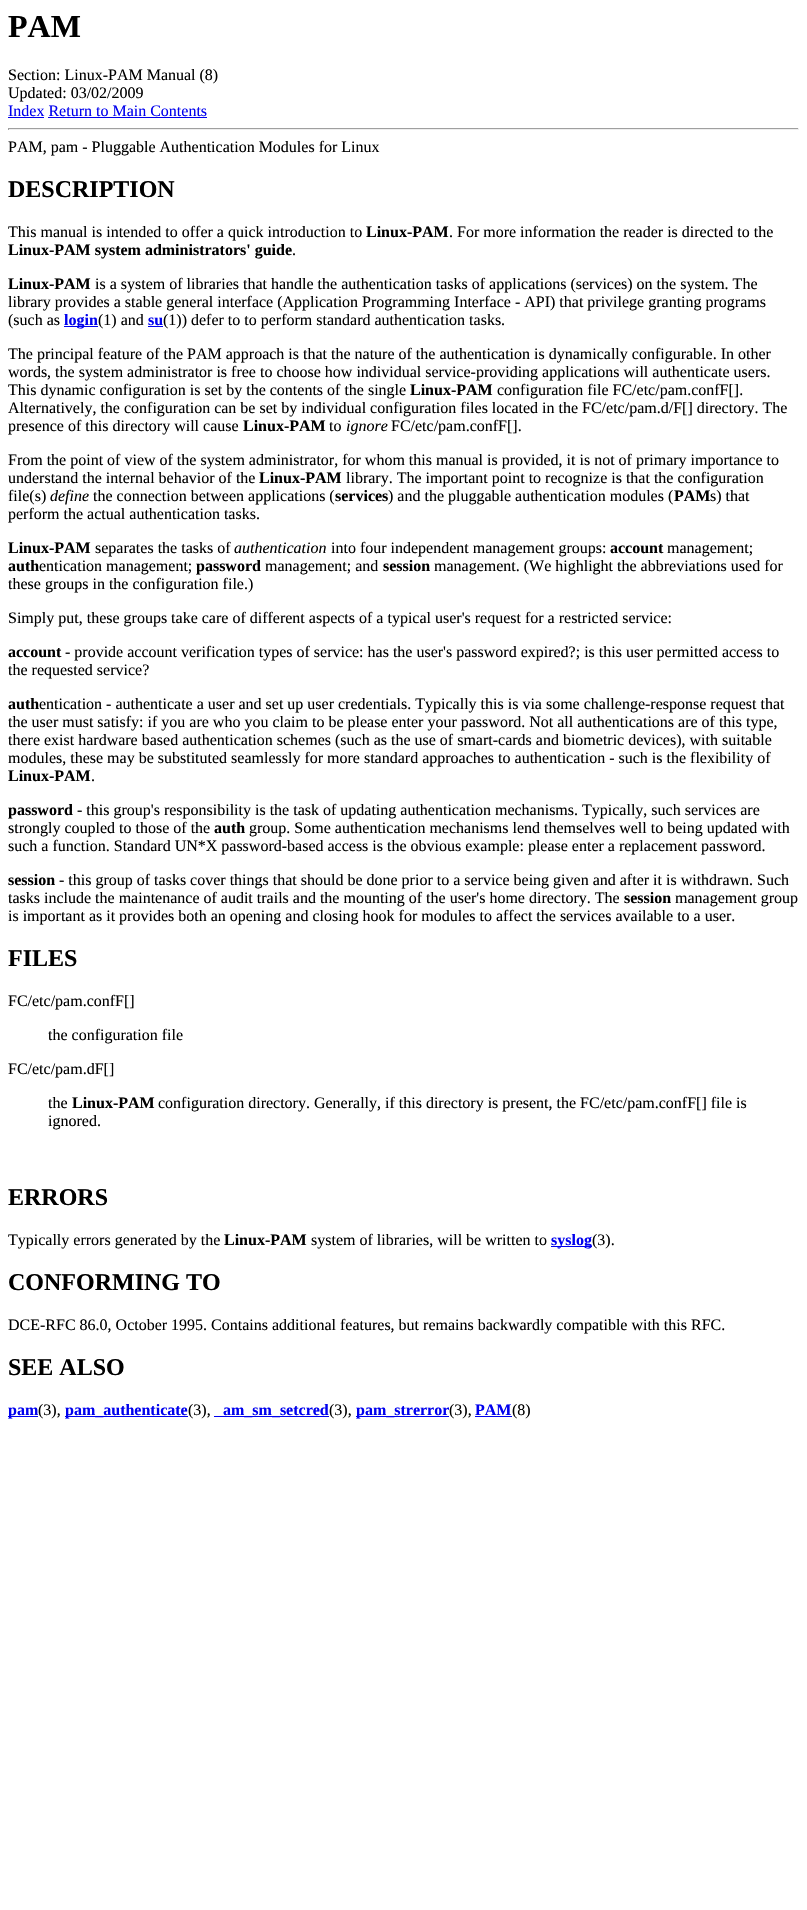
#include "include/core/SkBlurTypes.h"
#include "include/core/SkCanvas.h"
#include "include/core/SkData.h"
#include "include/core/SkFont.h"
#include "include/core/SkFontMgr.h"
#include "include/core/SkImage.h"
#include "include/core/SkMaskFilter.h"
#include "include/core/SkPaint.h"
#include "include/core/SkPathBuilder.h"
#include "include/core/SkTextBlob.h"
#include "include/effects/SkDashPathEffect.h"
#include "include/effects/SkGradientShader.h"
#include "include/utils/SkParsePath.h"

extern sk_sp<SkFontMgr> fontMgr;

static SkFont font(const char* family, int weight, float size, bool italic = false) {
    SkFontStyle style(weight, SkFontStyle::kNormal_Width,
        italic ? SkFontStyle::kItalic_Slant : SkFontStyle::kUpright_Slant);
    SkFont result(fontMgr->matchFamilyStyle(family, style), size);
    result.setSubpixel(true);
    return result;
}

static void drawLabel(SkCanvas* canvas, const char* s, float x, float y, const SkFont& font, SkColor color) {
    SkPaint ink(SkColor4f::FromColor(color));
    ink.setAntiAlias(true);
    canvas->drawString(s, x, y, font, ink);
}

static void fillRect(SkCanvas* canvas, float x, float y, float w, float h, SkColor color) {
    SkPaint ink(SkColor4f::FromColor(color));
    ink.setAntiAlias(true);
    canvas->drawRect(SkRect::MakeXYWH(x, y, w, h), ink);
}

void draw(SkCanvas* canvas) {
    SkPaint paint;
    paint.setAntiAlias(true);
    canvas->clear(0xFFFFFFFF);
    SkFont font1 = font("Liberation Serif", 700, 32);
    drawLabel(canvas, "PAM", 8, 37, font1, 0xFF000000);
    SkFont font2 = font("Liberation Serif", 400, 16);
    drawLabel(canvas, "Section: Linux-PAM Manual (8)", 8, 80, font2, 0xFF000000);
    drawLabel(canvas, "Updated: 03/02/2009", 8, 98, font2, 0xFF000000);
    drawLabel(canvas, "Index Return to Main Contents", 8, 116, font2, 0xFF0000EE);
    fillRect(canvas, 8, 117, 36, 1, 0xFF0000EE);
    fillRect(canvas, 48, 117, 159, 1, 0xFF0000EE);
    fillRect(canvas, 8, 128, 791, 1, 0xFF9F9F9F);
    fillRect(canvas, 798, 128, 1, 2, 0xFFEEEEEE);
    fillRect(canvas, 8, 129, 791, 1, 0xFFEEEEEE);
    fillRect(canvas, 8, 128, 1, 2, 0xFF9F9F9F);
    drawLabel(canvas, "PAM, pam - Pluggable Authentication Modules for Linux", 8, 152, font2, 0xFF000000);
    SkFont font3 = font("Liberation Serif", 700, 24);
    drawLabel(canvas, "DESCRIPTION", 8, 197, font3, 0xFF000000);
    drawLabel(canvas, "This manual is intended to offer a quick introduction to", 8, 237, font2, 0xFF000000);
    SkFont font4 = font("Liberation Serif", 700, 16);
    drawLabel(canvas, "Linux-PAM", 366, 237, font4, 0xFF000000);
    drawLabel(canvas, ". For more information the reader is directed to the", 449, 237, font2, 0xFF000000);
    drawLabel(canvas, "Linux-PAM system administrators' guide", 8, 255, font4, 0xFF000000);
    drawLabel(canvas, ".", 292, 255, font2, 0xFF000000);
    drawLabel(canvas, "Linux-PAM", 8, 289, font4, 0xFF000000);
    drawLabel(canvas, "is a system of libraries that handle the authentication tasks of applications (services) on the system. The", 95, 289, font2, 0xFF000000);
    drawLabel(canvas, "library provides a stable general interface (Application Programming Interface - API) that privilege granting programs", 8, 307, font2, 0xFF000000);
    drawLabel(canvas, "(such as", 8, 325, font2, 0xFF000000);
    fillRect(canvas, 64, 326, 34, 1, 0xFF0000EE);
    drawLabel(canvas, "login", 64, 325, font4, 0xFF0000EE);
    drawLabel(canvas, "(1) and", 98, 325, font2, 0xFF000000);
    drawLabel(canvas, "su", 148, 325, font4, 0xFF0000EE);
    fillRect(canvas, 148, 326, 15, 1, 0xFF0000EE);
    drawLabel(canvas, "(1)) defer to to perform standard authentication tasks.", 163, 325, font2, 0xFF000000);
    drawLabel(canvas, "The principal feature of the PAM approach is that the nature of the authentication is dynamically configurable. In other", 8, 359, font2, 0xFF000000);
    drawLabel(canvas, "words, the system administrator is free to choose how individual service-providing applications will authenticate users.", 8, 377, font2, 0xFF000000);
    drawLabel(canvas, "This dynamic configuration is set by the contents of the single", 8, 395, font2, 0xFF000000);
    drawLabel(canvas, "Linux-PAM", 410, 395, font4, 0xFF000000);
    drawLabel(canvas, "configuration file FC/etc/pam.confF[].", 497, 395, font2, 0xFF000000);
    drawLabel(canvas, "Alternatively, the configuration can be set by individual configuration files located in the FC/etc/pam.d/F[] directory. The", 8, 413, font2, 0xFF000000);
    drawLabel(canvas, "presence of this directory will cause", 8, 431, font2, 0xFF000000);
    drawLabel(canvas, "Linux-PAM", 243, 431, font4, 0xFF000000);
    drawLabel(canvas, "to", 329, 431, font2, 0xFF000000);
    SkFont font5 = font("Liberation Serif", 400, 16, true);
    drawLabel(canvas, "ignore", 346, 431, font5, 0xFF000000);
    drawLabel(canvas, "FC/etc/pam.confF[].", 391, 431, font2, 0xFF000000);
    drawLabel(canvas, "From the point of view of the system administrator, for whom this manual is provided, it is not of primary importance to", 8, 465, font2, 0xFF000000);
    drawLabel(canvas, "understand the internal behavior of the", 8, 483, font2, 0xFF000000);
    drawLabel(canvas, "Linux-PAM", 259, 483, font4, 0xFF000000);
    drawLabel(canvas, "library. The important point to recognize is that the configuration", 346, 483, font2, 0xFF000000);
    drawLabel(canvas, "file(s)", 8, 501, font2, 0xFF000000);
    drawLabel(canvas, "define", 50, 501, font5, 0xFF000000);
    drawLabel(canvas, "the connection between applications (", 93, 501, font2, 0xFF000000);
    drawLabel(canvas, "services", 335, 501, font4, 0xFF000000);
    drawLabel(canvas, ") and the pluggable authentication modules (", 388, 501, font2, 0xFF000000);
    drawLabel(canvas, "PAM", 674, 501, font4, 0xFF000000);
    drawLabel(canvas, "s) that", 710, 501, font2, 0xFF000000);
    drawLabel(canvas, "perform the actual authentication tasks.", 8, 519, font2, 0xFF000000);
    drawLabel(canvas, "Linux-PAM", 8, 553, font4, 0xFF000000);
    drawLabel(canvas, "separates the tasks of", 95, 553, font2, 0xFF000000);
    drawLabel(canvas, "authentication", 234, 553, font5, 0xFF000000);
    drawLabel(canvas, "into four independent management groups:", 331, 553, font2, 0xFF000000);
    drawLabel(canvas, "account", 610, 553, font4, 0xFF000000);
    drawLabel(canvas, "management;", 667, 553, font2, 0xFF000000);
    drawLabel(canvas, "auth", 8, 571, font4, 0xFF000000);
    drawLabel(canvas, "entication management;", 39, 571, font2, 0xFF000000);
    drawLabel(canvas, "password", 196, 571, font4, 0xFF000000);
    drawLabel(canvas, "management; and", 265, 571, font2, 0xFF000000);
    drawLabel(canvas, "session", 383, 571, font4, 0xFF000000);
    drawLabel(canvas, "management. (We highlight the abbreviations used for", 434, 571, font2, 0xFF000000);
    drawLabel(canvas, "these groups in the configuration file.)", 8, 589, font2, 0xFF000000);
    drawLabel(canvas, "Simply put, these groups take care of different aspects of a typical user's request for a restricted service:", 8, 623, font2, 0xFF000000);
    drawLabel(canvas, "account", 8, 657, font4, 0xFF000000);
    drawLabel(canvas, "- provide account verification types of service: has the user's password expired?; is this user permitted access to", 65, 657, font2, 0xFF000000);
    drawLabel(canvas, "the requested service?", 8, 675, font2, 0xFF000000);
    drawLabel(canvas, "auth", 8, 709, font4, 0xFF000000);
    drawLabel(canvas, "entication - authenticate a user and set up user credentials. Typically this is via some challenge-response request that", 39, 709, font2, 0xFF000000);
    drawLabel(canvas, "the user must satisfy: if you are who you claim to be please enter your password. Not all authentications are of this type,", 8, 727, font2, 0xFF000000);
    drawLabel(canvas, "there exist hardware based authentication schemes (such as the use of smart-cards and biometric devices), with suitable", 8, 745, font2, 0xFF000000);
    drawLabel(canvas, "modules, these may be substituted seamlessly for more standard approaches to authentication - such is the flexibility of", 8, 763, font2, 0xFF000000);
    drawLabel(canvas, "Linux-PAM", 8, 781, font4, 0xFF000000);
    drawLabel(canvas, ".", 91, 781, font2, 0xFF000000);
    drawLabel(canvas, "password", 8, 815, font4, 0xFF000000);
    drawLabel(canvas, "- this group's responsibility is the task of updating authentication mechanisms. Typically, such services are", 77, 815, font2, 0xFF000000);
    drawLabel(canvas, "strongly coupled to those of the", 8, 833, font2, 0xFF000000);
    drawLabel(canvas, "auth", 214, 833, font4, 0xFF000000);
    drawLabel(canvas, "group. Some authentication mechanisms lend themselves well to being updated with", 249, 833, font2, 0xFF000000);
    drawLabel(canvas, "such a function. Standard UN*X password-based access is the obvious example: please enter a replacement password.", 8, 851, font2, 0xFF000000);
    drawLabel(canvas, "session", 8, 885, font4, 0xFF000000);
    drawLabel(canvas, "- this group of tasks cover things that should be done prior to a service being given and after it is withdrawn. Such", 59, 885, font2, 0xFF000000);
    drawLabel(canvas, "tasks include the maintenance of audit trails and the mounting of the user's home directory. The", 8, 903, font2, 0xFF000000);
    drawLabel(canvas, "session", 624, 903, font4, 0xFF000000);
    drawLabel(canvas, "management group", 675, 903, font2, 0xFF000000);
    drawLabel(canvas, "is important as it provides both an opening and closing hook for modules to affect the services available to a user.", 8, 921, font2, 0xFF000000);
    drawLabel(canvas, "FILES", 8, 966, font3, 0xFF000000);
    drawLabel(canvas, "FC/etc/pam.confF[]", 8, 1006, font2, 0xFF000000);
    drawLabel(canvas, "the configuration file", 48, 1040, font2, 0xFF000000);
    drawLabel(canvas, "FC/etc/pam.dF[]", 8, 1074, font2, 0xFF000000);
    drawLabel(canvas, "the", 48, 1108, font2, 0xFF000000);
    drawLabel(canvas, "Linux-PAM", 72, 1108, font4, 0xFF000000);
    drawLabel(canvas, "configuration directory. Generally, if this directory is present, the FC/etc/pam.confF[] file is", 158, 1108, font2, 0xFF000000);
    drawLabel(canvas, "ignored.", 48, 1126, font2, 0xFF000000);
    drawLabel(canvas, "ERRORS", 8, 1205, font3, 0xFF000000);
    drawLabel(canvas, "Typically errors generated by the", 8, 1245, font2, 0xFF000000);
    drawLabel(canvas, "Linux-PAM", 224, 1245, font4, 0xFF000000);
    drawLabel(canvas, "system of libraries, will be written to", 311, 1245, font2, 0xFF000000);
    fillRect(canvas, 551, 1246, 41, 1, 0xFF0000EE);
    drawLabel(canvas, "syslog", 551, 1245, font4, 0xFF0000EE);
    drawLabel(canvas, "(3).", 592, 1245, font2, 0xFF000000);
    drawLabel(canvas, "CONFORMING TO", 8, 1290, font3, 0xFF000000);
    drawLabel(canvas, "DCE-RFC 86.0, October 1995. Contains additional features, but remains backwardly compatible with this RFC.", 8, 1330, font2, 0xFF000000);
    drawLabel(canvas, "SEE ALSO", 8, 1375, font3, 0xFF000000);
    fillRect(canvas, 8, 1416, 30, 1, 0xFF0000EE);
    drawLabel(canvas, "pam", 8, 1415, font4, 0xFF0000EE);
    drawLabel(canvas, "(3),", 38, 1415, font2, 0xFF000000);
    fillRect(canvas, 65, 1416, 123, 1, 0xFF0000EE);
    drawLabel(canvas, "pam_authenticate", 65, 1415, font4, 0xFF0000EE);
    drawLabel(canvas, "(3),", 188, 1415, font2, 0xFF000000);
    fillRect(canvas, 214, 1416, 115, 1, 0xFF0000EE);
    drawLabel(canvas, "am_sm_setcred", 223, 1415, font4, 0xFF0000EE);
    drawLabel(canvas, "(3),", 329, 1415, font2, 0xFF000000);
    fillRect(canvas, 356, 1416, 93, 1, 0xFF0000EE);
    drawLabel(canvas, "pam_strerror", 356, 1415, font4, 0xFF0000EE);
    drawLabel(canvas, "(3),", 449, 1415, font2, 0xFF000000);
    drawLabel(canvas, "PAM", 475, 1415, font4, 0xFF0000EE);
    fillRect(canvas, 475, 1416, 37, 1, 0xFF0000EE);
    drawLabel(canvas, "(8)", 512, 1415, font2, 0xFF000000);
}
